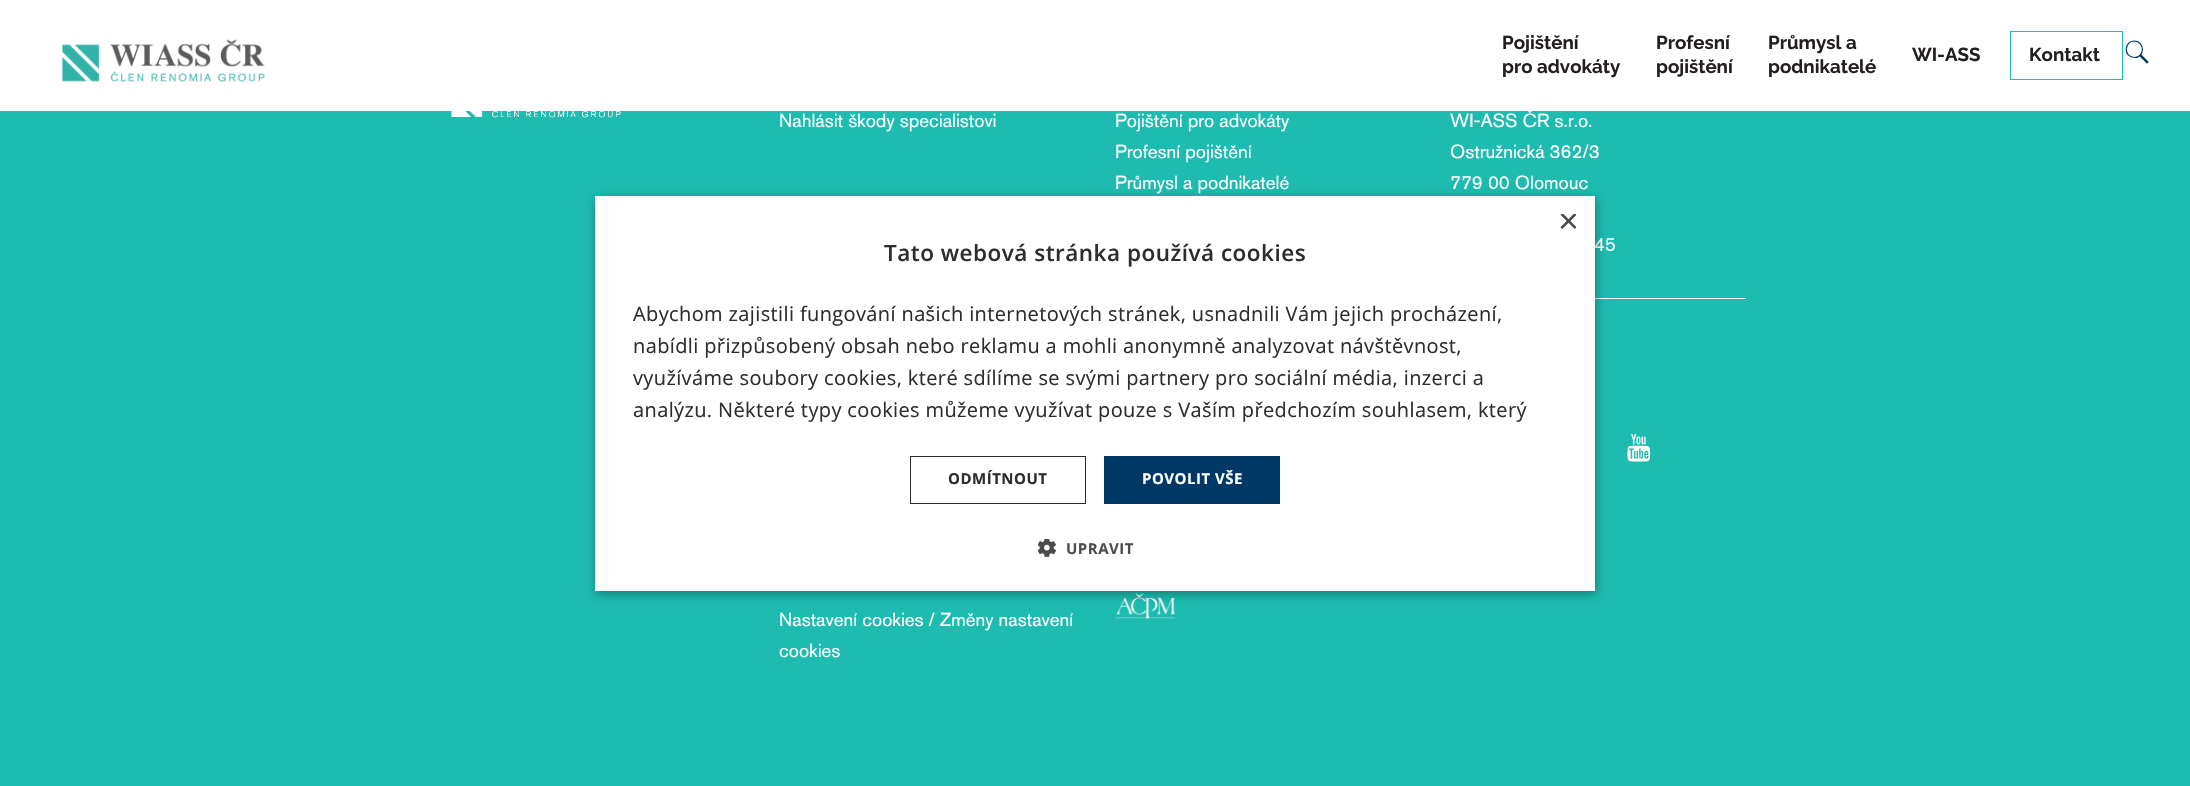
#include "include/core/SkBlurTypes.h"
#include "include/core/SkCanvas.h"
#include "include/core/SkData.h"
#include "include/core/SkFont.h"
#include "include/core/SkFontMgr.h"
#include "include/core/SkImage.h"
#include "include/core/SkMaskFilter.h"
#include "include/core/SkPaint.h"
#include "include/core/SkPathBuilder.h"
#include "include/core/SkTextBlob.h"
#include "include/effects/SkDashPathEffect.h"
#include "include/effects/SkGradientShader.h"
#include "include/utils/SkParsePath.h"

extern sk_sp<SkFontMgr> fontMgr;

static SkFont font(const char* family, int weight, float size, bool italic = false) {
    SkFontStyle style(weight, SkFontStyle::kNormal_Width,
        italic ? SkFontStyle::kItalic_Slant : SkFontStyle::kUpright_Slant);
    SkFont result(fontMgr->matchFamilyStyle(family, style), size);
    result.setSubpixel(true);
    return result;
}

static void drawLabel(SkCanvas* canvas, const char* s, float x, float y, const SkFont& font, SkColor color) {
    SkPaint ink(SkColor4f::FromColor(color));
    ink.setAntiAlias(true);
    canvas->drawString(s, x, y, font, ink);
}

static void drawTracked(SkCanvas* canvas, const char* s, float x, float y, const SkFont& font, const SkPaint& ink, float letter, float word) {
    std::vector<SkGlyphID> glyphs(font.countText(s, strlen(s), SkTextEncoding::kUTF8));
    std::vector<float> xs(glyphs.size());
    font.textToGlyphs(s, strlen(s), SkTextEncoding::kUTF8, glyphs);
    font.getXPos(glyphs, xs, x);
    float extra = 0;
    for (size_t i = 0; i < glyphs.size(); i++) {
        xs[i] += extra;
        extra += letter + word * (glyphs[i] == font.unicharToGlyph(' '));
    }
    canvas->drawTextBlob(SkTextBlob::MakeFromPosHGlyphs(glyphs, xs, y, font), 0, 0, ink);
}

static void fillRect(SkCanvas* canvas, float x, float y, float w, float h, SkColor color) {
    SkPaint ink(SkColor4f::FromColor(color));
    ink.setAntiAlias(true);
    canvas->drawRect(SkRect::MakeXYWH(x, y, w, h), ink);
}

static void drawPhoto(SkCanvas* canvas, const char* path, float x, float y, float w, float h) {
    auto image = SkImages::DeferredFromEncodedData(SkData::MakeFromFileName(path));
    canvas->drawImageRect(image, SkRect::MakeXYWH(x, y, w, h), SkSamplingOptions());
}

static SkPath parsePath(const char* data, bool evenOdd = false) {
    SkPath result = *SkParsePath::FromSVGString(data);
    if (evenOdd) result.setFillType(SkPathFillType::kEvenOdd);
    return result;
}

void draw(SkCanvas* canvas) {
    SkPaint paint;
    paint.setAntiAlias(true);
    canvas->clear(0xFF1DBBB0);
    fillRect(canvas, 0, 0, 2190, 111, 0xFFFFFFFF);
    drawPhoto(canvas, "assets/img1.png", 61, 39, 204, 43);
    SkFont font1 = font("Raleway", 700, 18.75f);
    drawLabel(canvas, "Pojištění", 1502, 49, font1, 0xFF231F20);
    drawLabel(canvas, "pro advokáty", 1502, 73, font1, 0xFF231F20);
    drawLabel(canvas, "Profesní", 1656, 49, font1, 0xFF231F20);
    drawLabel(canvas, "pojištění", 1656, 73, font1, 0xFF231F20);
    drawLabel(canvas, "Průmysl a", 1768, 49, font1, 0xFF231F20);
    drawLabel(canvas, "podnikatelé", 1768, 73, font1, 0xFF231F20);
    drawLabel(canvas, "WI-ASS", 1912, 61, font1, 0xFF231F20);
    paint.setStroke(true);
    paint.setStrokeWidth(1);
    paint.setColor(0xFF1DBBB0);
    canvas->drawRect(SkRect::MakeXYWH(2010.5f, 31.5f, 112, 48), paint);
    drawLabel(canvas, "Kontakt", 2029, 61, font1, 0xFF231F20);
    paint.setStrokeWidth(1.2f);
    paint.setColor(0xFF003865);
    canvas->drawPath(parsePath("M2134.5 57.5C2145 57.5 2145 41.5 2134.5 41C2123.5 41 2123.5 57.5 2134.5 57.5Z"), paint);
    paint.setStrokeWidth(2.5f);
    paint.setStrokeCap(SkPaint::kSquare_Cap);
    canvas->drawPath(parsePath("M2141 56L2147 62"), paint);
    drawPhoto(canvas, "assets/img2.png", 451, 111, 170, 7);
    SkFont font2 = font("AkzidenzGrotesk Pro", 400, 18.75f);
    drawLabel(canvas, "Nahlásit škody specialistovi", 779, 127, font2, 0xFFFFFFFF);
    drawLabel(canvas, "Pojištění pro advokáty", 1115, 127, font2, 0xFFFFFFFF);
    drawLabel(canvas, "Profesní pojištění", 1115, 158, font2, 0xFFFFFFFF);
    drawLabel(canvas, "Průmysl a podnikatelé", 1115, 189, font2, 0xFFFFFFFF);
    drawLabel(canvas, "WI-ASS ČR s.r.o.", 1450, 127, font2, 0xFFFFFFFF);
    drawLabel(canvas, "Ostružnická 362/3", 1450, 158, font2, 0xFFFFFFFF);
    drawLabel(canvas, "779 00 Olomouc", 1450, 189, font2, 0xFFFFFFFF);
    drawLabel(canvas, "45", 1594, 251, font2, 0xFFFFFFFF);
    fillRect(canvas, 1595, 298, 151, 1, 0xFFFFFFFF);
    drawPhoto(canvas, "assets/img3.png", 1627, 434, 24, 28);
    drawPhoto(canvas, "assets/img4.png", 1115, 593, 60, 26);
    drawLabel(canvas, "Nastavení cookies / Změny nastavení", 779, 626, font2, 0xFFFFFFFF);
    drawLabel(canvas, "cookies", 779, 657, font2, 0xFFFFFFFF);
    paint.setStroke(false);
    paint.setColor(0x59000000);
    paint.setMaskFilter(SkMaskFilter::MakeBlur(kNormal_SkBlurStyle, 5));
    canvas->drawRect(SkRect::MakeXYWH(596, 199, 1000, 395), paint);
    paint.setMaskFilter(nullptr);
    fillRect(canvas, 595, 196, 1000, 395, 0xFFFFFFFF);
    canvas->save();
    canvas->clipRect(SkRect::MakeXYWH(1558, 214, 18, 19));
    SkFont font3 = font("Liberation Sans", 400, 36);
    drawLabel(canvas, "×", 1558, 233, font3, 0xFF4D4D4D);
    canvas->restore();
    SkFont font4 = font("Open Sans", 600, 22.5f);
    paint.setColor(0xFF2D2D2D);
    drawTracked(canvas, "Tato webová stránka používá cookies", 884, 261, font4, paint, 0.5f, 0);
    SkFont font5 = font("Open Sans", 400, 20);
    drawTracked(canvas, "Abychom zajistili fungování našich internetových stránek, usnadnili Vám jejich procházení,", 633, 321, font5, paint, 0.38f, 0);
    drawTracked(canvas, "nabídli přizpůsobený obsah nebo reklamu a mohli anonymně analyzovat návštěvnost,", 633, 353, font5, paint, 0.38f, 0);
    drawTracked(canvas, "využíváme soubory cookies, které sdílíme se svými partnery pro sociální média, inzerci a", 633, 385, font5, paint, 0.38f, 0);
    drawTracked(canvas, "analýzu. Některé typy cookies můžeme využívat pouze s Vaším předchozím souhlasem, který", 633, 417, font5, paint, 0.38f, 0);
    paint.setStroke(true);
    paint.setStrokeWidth(1);
    paint.setStrokeCap(SkPaint::kButt_Cap);
    canvas->drawRect(SkRect::MakeXYWH(910.5f, 456.5f, 175, 47), paint);
    SkFont font6 = font("Open Sans", 700, 15);
    paint.setStroke(false);
    drawTracked(canvas, "ODMÍTNOUT", 948, 484, font6, paint, 0.5f, 0);
    fillRect(canvas, 1104, 456, 176, 48, 0xFF003865);
    paint.setColor(0xFFFFFFFF);
    drawTracked(canvas, "POVOLIT VŠE", 1142, 484, font6, paint, 0.5f, 0);
    drawPhoto(canvas, "assets/img5.png", 1038, 539, 18, 18);
    paint.setColor(0xFF4D4D4D);
    drawTracked(canvas, "UPRAVIT", 1066, 554, font6, paint, 0.5f, 0);
}
